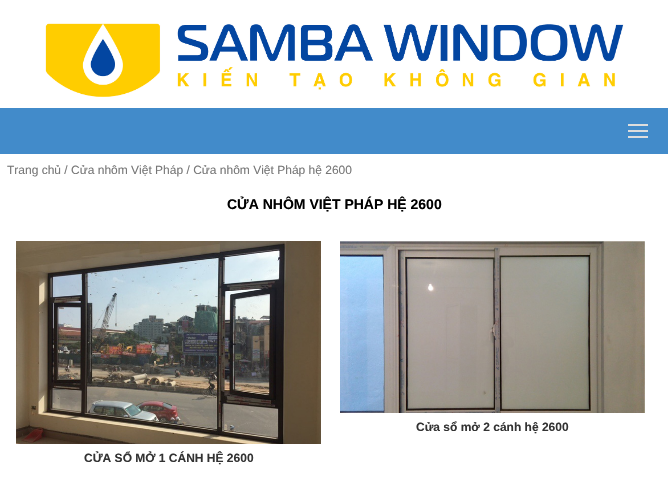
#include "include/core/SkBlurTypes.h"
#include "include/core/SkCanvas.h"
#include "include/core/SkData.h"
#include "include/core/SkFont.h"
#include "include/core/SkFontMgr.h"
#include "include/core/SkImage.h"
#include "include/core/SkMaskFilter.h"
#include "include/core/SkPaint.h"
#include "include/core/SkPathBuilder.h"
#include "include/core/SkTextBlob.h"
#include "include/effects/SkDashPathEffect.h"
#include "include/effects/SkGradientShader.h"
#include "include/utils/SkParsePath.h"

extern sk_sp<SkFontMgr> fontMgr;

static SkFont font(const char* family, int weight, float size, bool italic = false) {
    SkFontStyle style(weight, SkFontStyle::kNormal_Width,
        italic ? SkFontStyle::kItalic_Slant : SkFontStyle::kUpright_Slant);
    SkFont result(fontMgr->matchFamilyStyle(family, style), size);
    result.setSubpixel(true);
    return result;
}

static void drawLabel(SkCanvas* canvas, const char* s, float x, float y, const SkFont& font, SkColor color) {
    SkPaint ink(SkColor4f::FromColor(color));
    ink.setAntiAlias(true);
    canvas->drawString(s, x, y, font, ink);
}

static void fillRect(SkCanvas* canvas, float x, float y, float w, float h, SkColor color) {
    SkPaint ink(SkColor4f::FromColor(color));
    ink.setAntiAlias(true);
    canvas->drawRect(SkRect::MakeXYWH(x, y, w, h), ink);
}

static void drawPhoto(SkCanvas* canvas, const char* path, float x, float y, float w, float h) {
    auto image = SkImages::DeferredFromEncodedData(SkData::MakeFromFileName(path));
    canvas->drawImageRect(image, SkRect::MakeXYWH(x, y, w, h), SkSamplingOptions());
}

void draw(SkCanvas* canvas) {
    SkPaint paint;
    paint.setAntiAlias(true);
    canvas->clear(0xFFFFFFFF);
    drawPhoto(canvas, "assets/img1.png", 45, 23, 579, 74);
    fillRect(canvas, 0, 108, 668, 46, 0xFF428BCA);
    fillRect(canvas, 628, 124, 20, 2, 0xFFDDDDDD);
    fillRect(canvas, 628, 130, 20, 2, 0xFFDDDDDD);
    fillRect(canvas, 628, 136, 20, 2, 0xFFDDDDDD);
    SkFont font1 = font("Liberation Sans", 400, 12);
    drawLabel(canvas, "Trang chủ / Cửa nhôm Việt Pháp / Cửa nhôm Việt Pháp hệ 2600", 7, 174, font1, 0xFF777777);
    SkFont font2 = font("Liberation Sans", 700, 14);
    drawLabel(canvas, "CỬA NHÔM VIỆT PHÁP HỆ 2600", 227, 209, font2, 0xFF000000);
    drawPhoto(canvas, "assets/img2.png", 340, 241, 305, 172);
    SkFont font3 = font("Liberation Sans", 700, 12);
    drawLabel(canvas, "Cửa sổ mở 2 cánh hệ 2600", 416, 431, font3, 0xFF333333);
    drawPhoto(canvas, "assets/img3.png", 16, 241, 305, 203);
    drawLabel(canvas, "CỬA SỔ MỞ 1 CÁNH HỆ 2600", 84, 462, font3, 0xFF333333);
}
